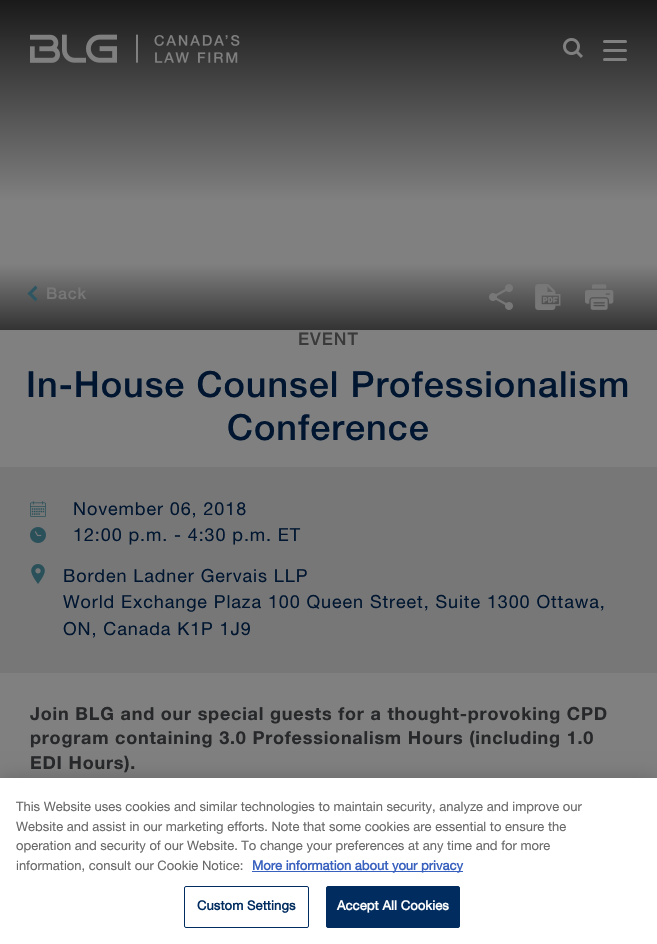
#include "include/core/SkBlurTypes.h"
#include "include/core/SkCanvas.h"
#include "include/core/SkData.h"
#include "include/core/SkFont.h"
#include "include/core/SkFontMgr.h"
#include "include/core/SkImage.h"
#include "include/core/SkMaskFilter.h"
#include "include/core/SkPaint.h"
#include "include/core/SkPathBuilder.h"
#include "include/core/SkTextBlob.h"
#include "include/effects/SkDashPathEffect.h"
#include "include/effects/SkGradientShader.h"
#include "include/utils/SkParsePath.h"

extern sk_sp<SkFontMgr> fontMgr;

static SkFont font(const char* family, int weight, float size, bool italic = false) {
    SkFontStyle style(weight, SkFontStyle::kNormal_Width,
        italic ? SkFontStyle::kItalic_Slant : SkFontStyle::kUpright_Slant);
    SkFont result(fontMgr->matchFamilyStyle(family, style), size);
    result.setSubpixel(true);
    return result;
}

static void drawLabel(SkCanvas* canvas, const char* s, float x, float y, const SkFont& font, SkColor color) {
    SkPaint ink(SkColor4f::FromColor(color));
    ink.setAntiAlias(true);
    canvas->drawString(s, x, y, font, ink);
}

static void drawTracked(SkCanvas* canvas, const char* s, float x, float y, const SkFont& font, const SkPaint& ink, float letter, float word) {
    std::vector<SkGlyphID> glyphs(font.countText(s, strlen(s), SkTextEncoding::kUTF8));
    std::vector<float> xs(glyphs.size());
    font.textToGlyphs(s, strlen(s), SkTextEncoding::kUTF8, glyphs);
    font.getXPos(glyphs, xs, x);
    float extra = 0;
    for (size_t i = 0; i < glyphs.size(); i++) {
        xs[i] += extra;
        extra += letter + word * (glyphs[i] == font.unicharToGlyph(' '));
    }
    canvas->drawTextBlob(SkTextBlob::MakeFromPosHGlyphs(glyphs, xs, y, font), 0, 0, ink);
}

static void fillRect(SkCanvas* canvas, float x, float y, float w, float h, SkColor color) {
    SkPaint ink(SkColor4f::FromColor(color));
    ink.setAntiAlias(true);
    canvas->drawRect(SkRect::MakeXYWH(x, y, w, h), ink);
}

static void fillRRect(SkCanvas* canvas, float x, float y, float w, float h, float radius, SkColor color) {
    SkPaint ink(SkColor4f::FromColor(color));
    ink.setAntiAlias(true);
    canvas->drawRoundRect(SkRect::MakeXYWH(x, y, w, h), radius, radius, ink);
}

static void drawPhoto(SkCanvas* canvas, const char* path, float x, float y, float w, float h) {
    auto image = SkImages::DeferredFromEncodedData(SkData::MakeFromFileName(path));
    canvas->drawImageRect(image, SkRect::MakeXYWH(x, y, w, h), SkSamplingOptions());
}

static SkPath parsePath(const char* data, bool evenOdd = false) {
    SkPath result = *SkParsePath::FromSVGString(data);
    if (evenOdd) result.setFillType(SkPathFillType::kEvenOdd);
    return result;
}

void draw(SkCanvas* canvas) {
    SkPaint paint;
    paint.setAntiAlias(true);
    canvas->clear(0xFF808080);
    {
        const SkColor colors[] = {0xFF1A1A1A, 0xFF808080, 0xFF808080, 0xFF333333};
        const float stops[] = {0, 0.61f, 0.8f, 1};
        const SkPoint ends[] = {{329, 0}, {329, 330}};
        paint.setShader(SkGradientShader::MakeLinear(ends, colors, stops, 4, SkTileMode::kClamp));
        paint.setAlpha(255);
    }
    canvas->drawRect(SkRect::MakeXYWH(0, 0, 657, 330), paint);
    drawPhoto(canvas, "assets/img1.png", 30, 34, 210, 29);
    drawPhoto(canvas, "assets/img2.png", 563, 38, 20, 20);
    fillRRect(canvas, 603, 49, 24, 3, 1.5f, 0xFF808080);
    fillRRect(canvas, 603, 40, 24, 3, 1.5f, 0xFF808080);
    fillRRect(canvas, 603, 58, 24, 3, 1.5f, 0xFF808080);
    paint.setShader(nullptr);
    paint.setColor(0xFF2D5662);
    canvas->drawPath(parsePath("M35.5 301.5L27.5 293.5L30 291.5L37.5 299Z"), paint);
    canvas->drawPath(parsePath("M30 295.5L27.5 293.5L35.5 285.5L37.5 288Z"), paint);
    SkFont font1 = font("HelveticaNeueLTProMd", 400, 16);
    paint.setColor(0xFF777777);
    drawTracked(canvas, "Back", 46, 299, font1, paint, 0.8f, 0);
    drawPhoto(canvas, "assets/img3.png", 489, 284, 24, 26);
    drawPhoto(canvas, "assets/img4.png", 535, 284, 26, 26);
    drawPhoto(canvas, "assets/img5.png", 585, 284, 29, 26);
    SkFont font2 = font("HelveticaNeueLTProMd", 400, 17.5f);
    paint.setColor(0xFF3A3A3A);
    drawTracked(canvas, "EVENT", 298, 345, font2, paint, 1, 0);
    SkFont font3 = font("HelveticaNeueLTProMd", 400, 36);
    paint.setColor(0xFF001630);
    drawTracked(canvas, "In-House Counsel Professionalism", 26, 397, font3, paint, 1, 0);
    drawTracked(canvas, "Conference", 227, 440, font3, paint, 1, 0);
    fillRect(canvas, 0, 467, 657, 206, 0xFF777777);
    drawPhoto(canvas, "assets/img6.png", 30, 501, 16, 16);
    SkFont font4 = font("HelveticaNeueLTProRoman", 400, 18);
    drawTracked(canvas, "November 06, 2018", 73, 515, font4, paint, 0.9f, 0);
    drawPhoto(canvas, "assets/img7.png", 30, 527, 16, 16);
    drawTracked(canvas, "12:00 p.m. - 4:30 p.m. ET", 73, 541, font4, paint, 0.9f, 0);
    drawPhoto(canvas, "assets/img8.png", 31, 564, 14, 20);
    drawTracked(canvas, "Borden Ladner Gervais LLP", 63, 582, font4, paint, 0.9f, 0);
    drawTracked(canvas, "World Exchange Plaza 100 Queen Street, Suite 1300 Ottawa,", 63, 608, font4, paint, 0.9f, 0);
    drawTracked(canvas, "ON, Canada K1P 1J9", 63, 635, font4, paint, 0.9f, 0);
    SkFont font5 = font("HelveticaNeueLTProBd", 400, 18);
    paint.setColor(0xFF27282A);
    drawTracked(canvas, "Join BLG and our special guests for a thought-provoking CPD", 30, 720, font5, paint, 0.8f, 0);
    drawTracked(canvas, "program containing 3.0 Professionalism Hours (including 1.0", 30, 744, font5, paint, 0.8f, 0);
    drawTracked(canvas, "EDI Hours).", 30, 769, font5, paint, 0.8f, 0);
    paint.setColor(0x33000000);
    paint.setMaskFilter(SkMaskFilter::MakeBlur(kNormal_SkBlurStyle, 9));
    canvas->drawRect(SkRect::MakeXYWH(0, 778, 657, 166), paint);
    paint.setMaskFilter(nullptr);
    fillRect(canvas, 0, 778, 657, 166, 0xFFFFFFFF);
    SkFont font6 = font("HelveticaNeueLTProRoman", 400, 13);
    drawLabel(canvas, "This Website uses cookies and similar technologies to maintain security, analyze and improve our", 16, 811, font6, 0xFF696969);
    drawLabel(canvas, "Website and assist in our marketing efforts. Note that some cookies are essential to ensure the", 16, 831, font6, 0xFF696969);
    drawLabel(canvas, "operation and security of our Website. To change your preferences at any time and for more", 16, 850, font6, 0xFF696969);
    drawLabel(canvas, "information, consult our Cookie Notice:", 16, 870, font6, 0xFF696969);
    fillRect(canvas, 252, 871, 211, 1, 0xFF3860BE);
    SkFont font7 = font("HelveticaNeueLTProRoman", 700, 13);
    drawLabel(canvas, "More information about your privacy", 252, 870, font7, 0xFF3860BE);
    paint.setStroke(true);
    paint.setStrokeWidth(1);
    paint.setColor(0xFF002C5F);
    canvas->drawRoundRect(SkRect::MakeXYWH(184.5f, 886.5f, 124, 41), 1.5f, 1.5f, paint);
    paint.setStroke(false);
    drawTracked(canvas, "Custom Settings", 197, 910, font7, paint, 0.1f, 0);
    canvas->drawRoundRect(SkRect::MakeXYWH(326.5f, 886.5f, 133, 41), 1.5f, 1.5f, paint);
    paint.setStroke(true);
    canvas->drawRoundRect(SkRect::MakeXYWH(326.5f, 886.5f, 133, 41), 1.5f, 1.5f, paint);
    paint.setStroke(false);
    paint.setColor(0xFFFFFFFF);
    drawTracked(canvas, "Accept All Cookies", 337, 910, font7, paint, 0.1f, 0);
}
